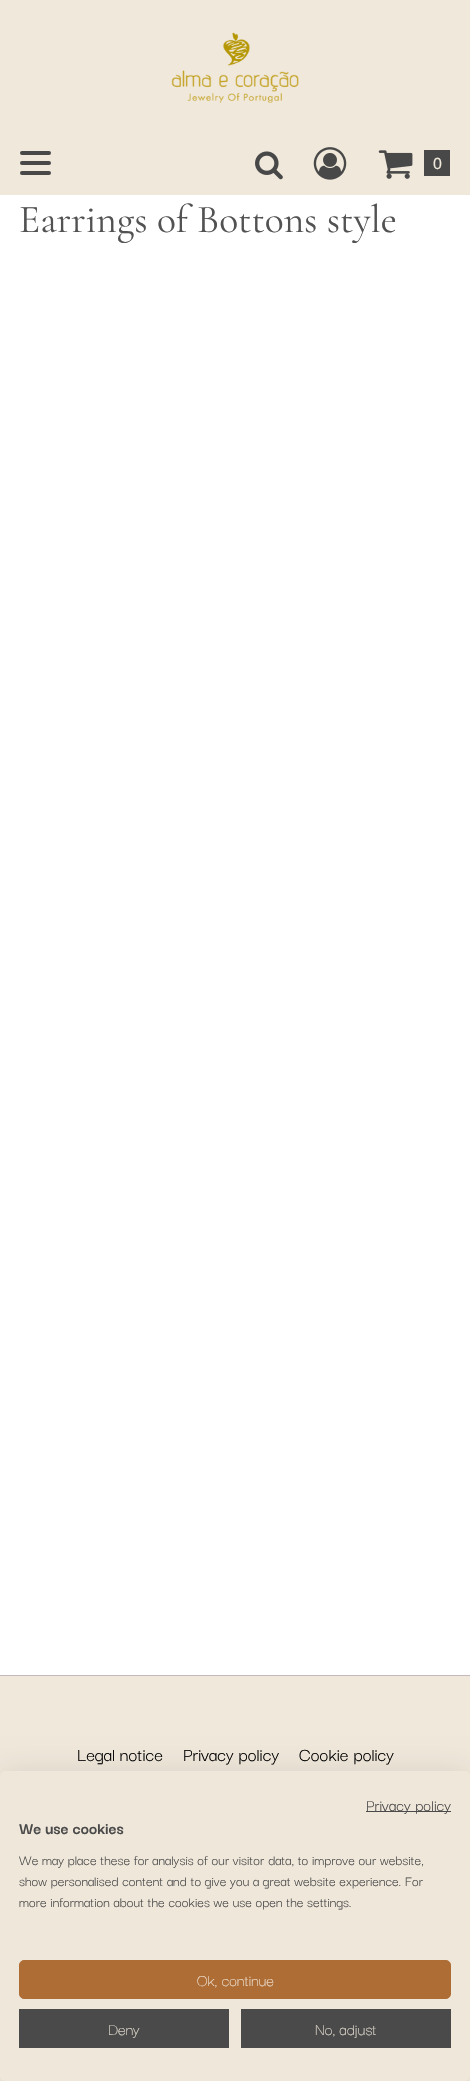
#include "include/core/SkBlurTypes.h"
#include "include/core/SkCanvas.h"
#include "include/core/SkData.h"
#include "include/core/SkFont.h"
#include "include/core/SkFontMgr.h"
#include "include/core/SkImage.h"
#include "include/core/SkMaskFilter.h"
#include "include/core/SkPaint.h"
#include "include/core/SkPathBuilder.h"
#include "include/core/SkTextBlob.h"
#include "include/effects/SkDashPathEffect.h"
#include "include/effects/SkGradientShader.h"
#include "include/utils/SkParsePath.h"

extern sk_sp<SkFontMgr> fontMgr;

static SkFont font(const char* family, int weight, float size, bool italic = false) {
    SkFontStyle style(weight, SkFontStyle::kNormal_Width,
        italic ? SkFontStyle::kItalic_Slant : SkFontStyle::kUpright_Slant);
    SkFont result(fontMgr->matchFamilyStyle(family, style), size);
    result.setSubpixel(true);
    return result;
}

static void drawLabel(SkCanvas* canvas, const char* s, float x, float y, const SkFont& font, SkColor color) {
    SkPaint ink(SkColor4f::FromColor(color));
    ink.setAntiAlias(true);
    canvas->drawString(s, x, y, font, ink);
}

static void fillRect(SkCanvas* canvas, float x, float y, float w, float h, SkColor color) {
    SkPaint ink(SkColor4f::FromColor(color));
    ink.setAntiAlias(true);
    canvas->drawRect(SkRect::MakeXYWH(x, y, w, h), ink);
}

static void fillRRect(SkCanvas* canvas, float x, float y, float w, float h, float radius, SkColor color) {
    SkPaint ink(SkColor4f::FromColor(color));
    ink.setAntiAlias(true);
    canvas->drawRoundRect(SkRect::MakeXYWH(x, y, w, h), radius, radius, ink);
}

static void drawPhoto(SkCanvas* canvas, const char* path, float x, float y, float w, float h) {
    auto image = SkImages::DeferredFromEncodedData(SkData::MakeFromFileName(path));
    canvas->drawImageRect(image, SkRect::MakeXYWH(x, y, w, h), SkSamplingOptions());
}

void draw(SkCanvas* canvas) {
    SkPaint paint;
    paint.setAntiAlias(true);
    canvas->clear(0xFFFFFFFF);
    fillRect(canvas, 0, 0, 470, 195, 0xFFF0E8DB);
    drawPhoto(canvas, "assets/img1.png", 171, 32, 128, 71);
    fillRRect(canvas, 20, 161, 31, 4, 2, 0xFF484848);
    fillRRect(canvas, 20, 151, 31, 4, 2, 0xFF484848);
    fillRRect(canvas, 20, 171, 31, 4, 2, 0xFF484848);
    drawPhoto(canvas, "assets/img2.png", 255, 151, 28, 29);
    drawPhoto(canvas, "assets/img3.png", 313, 147, 34, 33);
    drawPhoto(canvas, "assets/img4.png", 378, 150, 35, 29);
    fillRect(canvas, 424, 150, 26, 26, 0xFF484848);
    SkFont font1 = font("Liberation Sans", 400, 16);
    drawLabel(canvas, "0", 433, 169, font1, 0xFFF0E8DB);
    SkFont font2 = font("Cormorant Garamond", 400, 39.5f);
    drawLabel(canvas, "Earrings of Bottons style", 19, 232, font2, 0xFF525252);
    fillRect(canvas, 0, 1676, 470, 405, 0xFFF0E8DB);
    fillRect(canvas, 0, 1675, 470, 1, 0xFFC5B8BB);
    SkFont font3 = font("Darker Grotesque", 400, 19.75f);
    drawLabel(canvas, "Legal notice", 77, 1761, font3, 0xFF000000);
    drawLabel(canvas, "Privacy policy", 183, 1761, font3, 0xFF000000);
    drawLabel(canvas, "Cookie policy", 299, 1761, font3, 0xFF000000);
    paint.setColor(0x1A000000);
    paint.setMaskFilter(SkMaskFilter::MakeBlur(kNormal_SkBlurStyle, 15));
    canvas->drawRoundRect(SkRect::MakeXYWH(0, 1771, 470, 310), 5, 5, paint);
    paint.setMaskFilter(nullptr);
    fillRRect(canvas, 0, 1771, 470, 310, 5, 0xFFEFE7DA);
    fillRect(canvas, 366, 1811, 85, 1, 0xFF4A4A4A);
    SkFont font4 = font("Darker Grotesque", 400, 17.5f);
    drawLabel(canvas, "Privacy policy", 366, 1811, font4, 0xFF4A4A4A);
    SkFont font5 = font("Darker Grotesque", 700, 17.5f);
    drawLabel(canvas, "We use cookies", 19, 1834, font5, 0xFF4A4A4A);
    SkFont font6 = font("Darker Grotesque", 400, 15);
    drawLabel(canvas, "We may place these for analysis of our visitor data, to improve our website,", 19, 1865, font6, 0xFF4A4A4A);
    drawLabel(canvas, "show personalised content and to give you a great website experience. For", 19, 1886, font6, 0xFF4A4A4A);
    drawLabel(canvas, "more information about the cookies we use open the settings.", 19, 1907, font6, 0xFF4A4A4A);
    paint.setColor(0xFFAF6D36);
    canvas->drawRoundRect(SkRect::MakeXYWH(19.5f, 1960.5f, 431, 38), 4.5f, 4.5f, paint);
    paint.setStroke(true);
    paint.setStrokeWidth(1);
    canvas->drawRoundRect(SkRect::MakeXYWH(19.5f, 1960.5f, 431, 38), 4.5f, 4.5f, paint);
    SkFont font7 = font("Darker Grotesque", 300, 17.5f);
    drawLabel(canvas, "Ok, continue", 197, 1986, font7, 0xFFF0E8DB);
    fillRect(canvas, 19, 2009, 210, 39, 0xFF4A4A4A);
    drawLabel(canvas, "Deny", 108, 2035, font7, 0xFFF0E8DB);
    fillRect(canvas, 241, 2009, 210, 39, 0xFF4A4A4A);
    drawLabel(canvas, "No, adjust", 315, 2035, font7, 0xFFF0E8DB);
}
